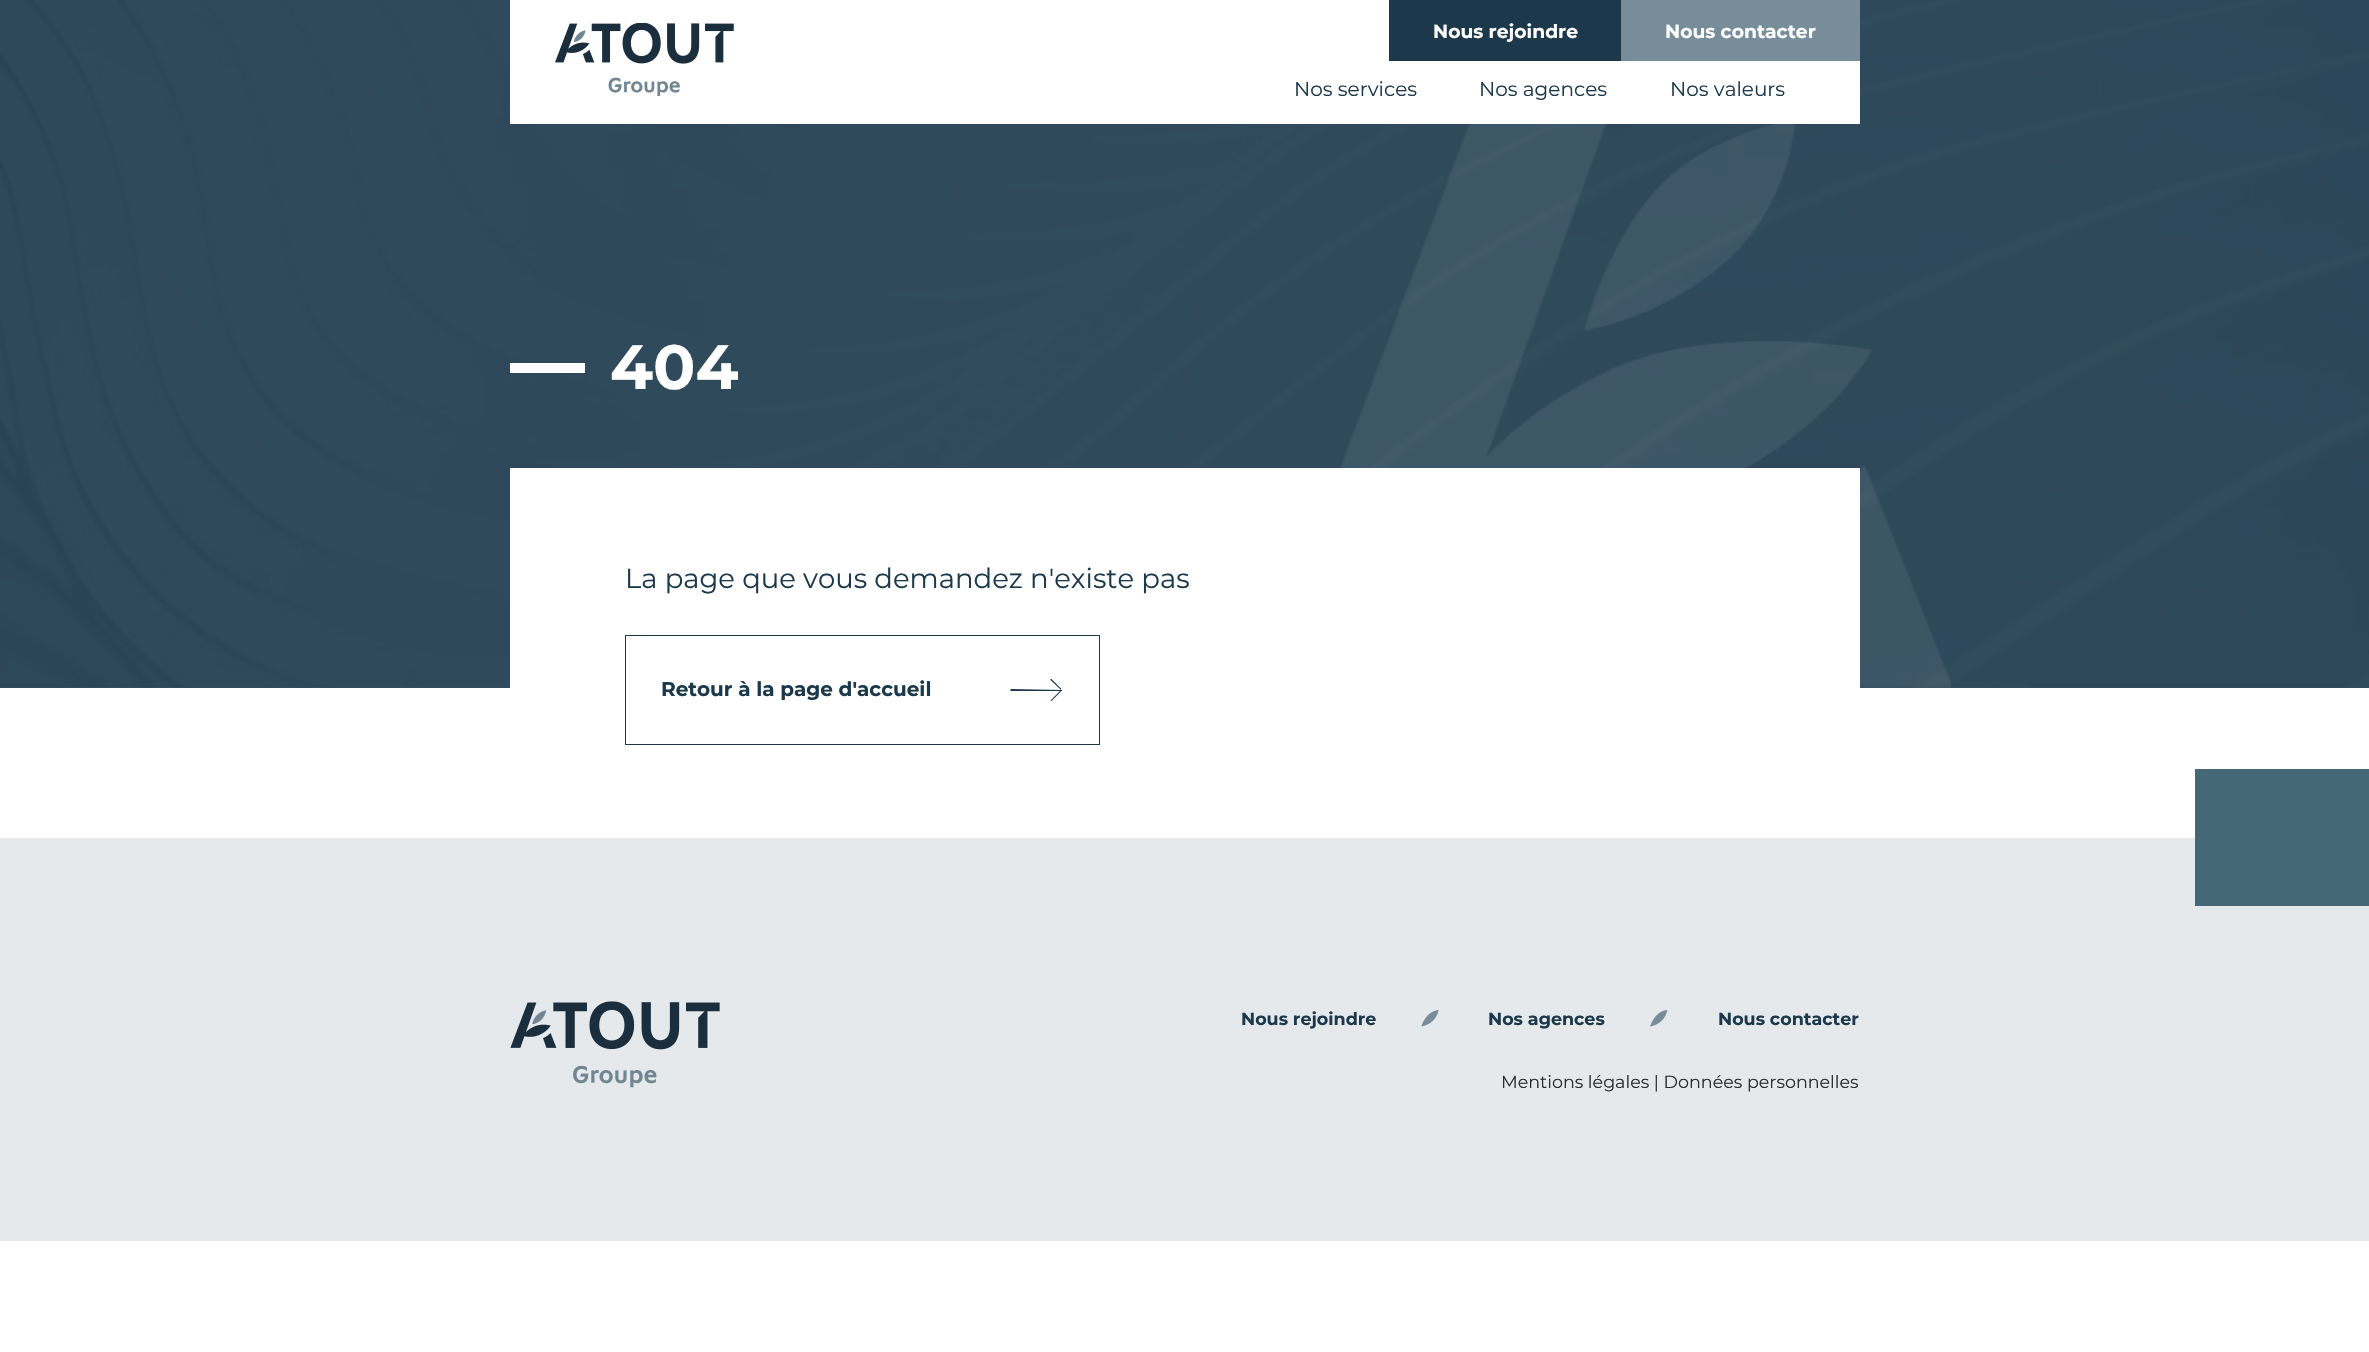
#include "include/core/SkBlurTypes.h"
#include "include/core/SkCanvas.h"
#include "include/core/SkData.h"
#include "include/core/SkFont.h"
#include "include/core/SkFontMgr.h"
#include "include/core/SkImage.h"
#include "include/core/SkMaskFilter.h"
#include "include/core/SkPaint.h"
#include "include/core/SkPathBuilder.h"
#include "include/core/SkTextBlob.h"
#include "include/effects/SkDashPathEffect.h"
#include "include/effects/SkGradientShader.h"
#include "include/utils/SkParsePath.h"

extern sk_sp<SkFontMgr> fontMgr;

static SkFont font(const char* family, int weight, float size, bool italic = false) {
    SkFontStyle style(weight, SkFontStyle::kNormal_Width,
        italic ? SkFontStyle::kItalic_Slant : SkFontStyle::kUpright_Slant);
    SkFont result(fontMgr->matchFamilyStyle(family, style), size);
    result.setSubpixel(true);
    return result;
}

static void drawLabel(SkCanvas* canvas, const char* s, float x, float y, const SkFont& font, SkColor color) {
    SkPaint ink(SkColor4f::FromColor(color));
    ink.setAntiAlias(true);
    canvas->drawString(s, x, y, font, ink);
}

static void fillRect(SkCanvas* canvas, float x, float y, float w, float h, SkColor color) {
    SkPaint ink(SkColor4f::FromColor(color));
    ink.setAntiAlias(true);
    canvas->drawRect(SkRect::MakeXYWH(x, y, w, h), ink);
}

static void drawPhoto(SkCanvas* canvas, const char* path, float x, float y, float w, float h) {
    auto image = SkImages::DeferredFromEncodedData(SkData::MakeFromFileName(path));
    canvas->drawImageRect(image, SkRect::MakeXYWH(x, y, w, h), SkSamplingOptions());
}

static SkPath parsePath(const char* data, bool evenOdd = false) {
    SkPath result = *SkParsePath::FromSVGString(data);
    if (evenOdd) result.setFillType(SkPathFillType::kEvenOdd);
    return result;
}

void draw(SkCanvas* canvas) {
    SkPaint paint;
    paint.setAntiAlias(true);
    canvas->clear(0xFFFFFFFF);
    fillRect(canvas, 0, 687, 2369, 1, 0xFF334D5D);
    drawPhoto(canvas, "assets/img2.png", 0, 0, 2369, 688);
    fillRect(canvas, 510, 0, 1350, 124, 0xFFFFFFFF);
    drawPhoto(canvas, "assets/img1.png", 555, 23, 179, 73);
    fillRect(canvas, 1389, 0, 232, 61, 0xFF1C394B);
    SkFont font1 = font("Montserrat", 100, 18.75f);
    drawLabel(canvas, "Nous rejoindre", 1433, 38, font1, 0xFFFFFFFF);
    fillRect(canvas, 1621, 0, 239, 61, 0xFF778D9A);
    drawLabel(canvas, "Nous contacter", 1665, 38, font1, 0xFFFFFFFF);
    SkFont font2 = font("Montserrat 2", 100, 20);
    drawLabel(canvas, "Nos services", 1294, 96, font2, 0xFF1C394B);
    drawLabel(canvas, "Nos agences", 1479, 96, font2, 0xFF1C394B);
    drawLabel(canvas, "Nos valeurs", 1670, 96, font2, 0xFF1C394B);
    fillRect(canvas, 510, 363, 75, 10, 0xFFFFFFFF);
    SkFont font3 = font("Montserrat", 100, 62.5f);
    drawLabel(canvas, "404", 610, 389, font3, 0xFFFFFFFF);
    drawPhoto(canvas, "assets/img3.png", 1340, 124, 611, 564);
    fillRect(canvas, 510, 468, 1350, 220, 0xFFFFFFFF);
    SkFont font4 = font("Montserrat 2", 100, 27.5f);
    drawLabel(canvas, "La page que vous demandez n'existe pas", 625, 588, font4, 0xFF1C394B);
    paint.setStroke(true);
    paint.setStrokeWidth(1);
    paint.setColor(0xFF1C394B);
    canvas->drawRect(SkRect::MakeXYWH(625.5f, 635.5f, 474, 109), paint);
    SkFont font5 = font("Montserrat", 100, 20);
    drawLabel(canvas, "Retour à la page d'accueil", 661, 696, font5, 0xFF1C394B);
    paint.setStroke(false);
    canvas->drawPath(parsePath("M1010 690L1011 691H1062V690L1011 689Z"), paint);
    canvas->save();
    canvas->clipRect(SkRect::MakeXYWH(1010, 679, 51, 22));
    canvas->drawPath(parsePath("M1050.5 700.5C1050.5 701 1051 701 1051.5 701L1062 690.5C1062.5 689.5 1061 688.5 1060.5 688L1051.5 679H1050.5V680L1061 690Z"), paint);
    canvas->restore();
    fillRect(canvas, 0, 838, 2369, 403, 0xFFE5E9EC);
    fillRect(canvas, 2195, 769, 174, 137, 0xFF446876);
    drawPhoto(canvas, "assets/img4.png", 510, 1001, 210, 87);
    SkFont font6 = font("Montserrat", 100, 17.5f);
    drawLabel(canvas, "Nous rejoindre", 1241, 1025, font6, 0xFF1C394B);
    drawPhoto(canvas, "assets/img5.png", 1421, 1010, 18, 17);
    drawLabel(canvas, "Nos agences", 1488, 1025, font6, 0xFF1C394B);
    drawPhoto(canvas, "assets/img6.png", 1650, 1010, 18, 17);
    drawLabel(canvas, "Nous contacter", 1718, 1025, font6, 0xFF1C394B);
    SkFont font7 = font("Montserrat 2", 100, 17.5f);
    drawLabel(canvas, "Mentions légales | Données personnelles", 1501, 1088, font7, 0xFF2E2E2E);
}
